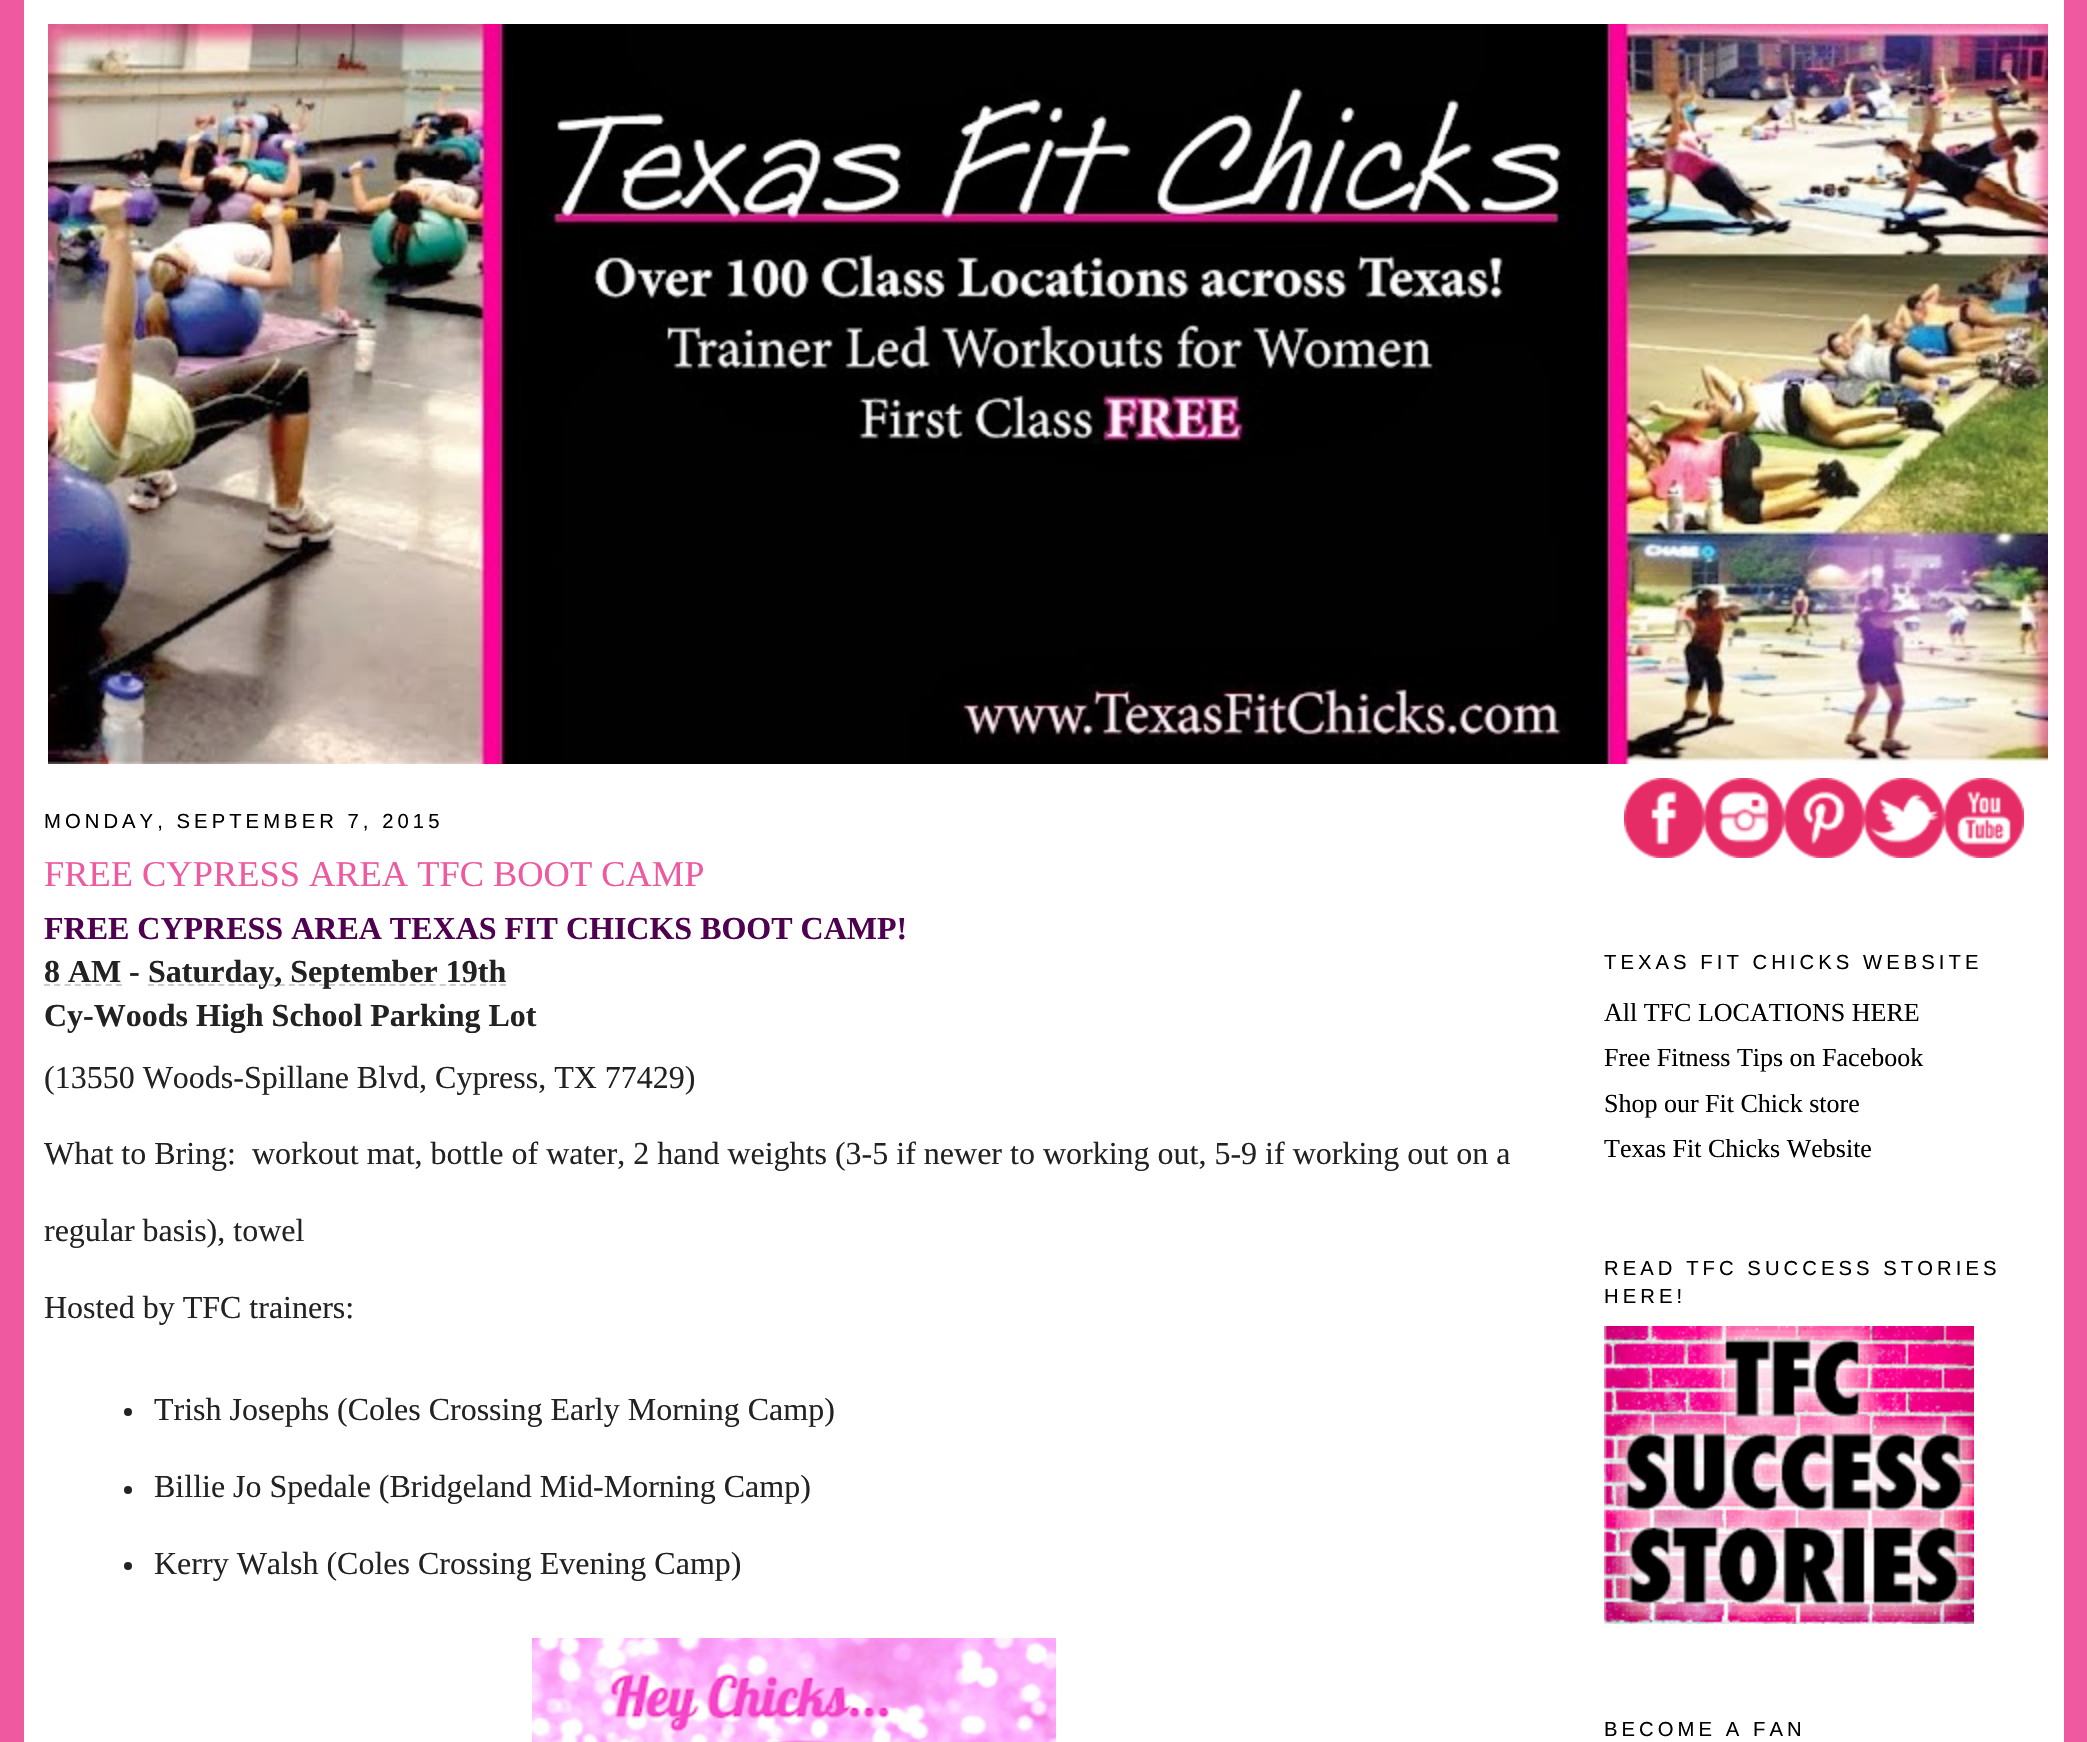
#include "include/core/SkBlurTypes.h"
#include "include/core/SkCanvas.h"
#include "include/core/SkData.h"
#include "include/core/SkFont.h"
#include "include/core/SkFontMgr.h"
#include "include/core/SkImage.h"
#include "include/core/SkMaskFilter.h"
#include "include/core/SkPaint.h"
#include "include/core/SkPathBuilder.h"
#include "include/core/SkTextBlob.h"
#include "include/effects/SkDashPathEffect.h"
#include "include/effects/SkGradientShader.h"
#include "include/utils/SkParsePath.h"

extern sk_sp<SkFontMgr> fontMgr;

static SkFont font(const char* family, int weight, float size, bool italic = false) {
    SkFontStyle style(weight, SkFontStyle::kNormal_Width,
        italic ? SkFontStyle::kItalic_Slant : SkFontStyle::kUpright_Slant);
    SkFont result(fontMgr->matchFamilyStyle(family, style), size);
    result.setSubpixel(true);
    return result;
}

static void drawLabel(SkCanvas* canvas, const char* s, float x, float y, const SkFont& font, SkColor color) {
    SkPaint ink(SkColor4f::FromColor(color));
    ink.setAntiAlias(true);
    canvas->drawString(s, x, y, font, ink);
}

static void drawTracked(SkCanvas* canvas, const char* s, float x, float y, const SkFont& font, const SkPaint& ink, float letter, float word) {
    std::vector<SkGlyphID> glyphs(font.countText(s, strlen(s), SkTextEncoding::kUTF8));
    std::vector<float> xs(glyphs.size());
    font.textToGlyphs(s, strlen(s), SkTextEncoding::kUTF8, glyphs);
    font.getXPos(glyphs, xs, x);
    float extra = 0;
    for (size_t i = 0; i < glyphs.size(); i++) {
        xs[i] += extra;
        extra += letter + word * (glyphs[i] == font.unicharToGlyph(' '));
    }
    canvas->drawTextBlob(SkTextBlob::MakeFromPosHGlyphs(glyphs, xs, y, font), 0, 0, ink);
}

static void fillRect(SkCanvas* canvas, float x, float y, float w, float h, SkColor color) {
    SkPaint ink(SkColor4f::FromColor(color));
    ink.setAntiAlias(true);
    canvas->drawRect(SkRect::MakeXYWH(x, y, w, h), ink);
}

static void drawPhoto(SkCanvas* canvas, const char* path, float x, float y, float w, float h) {
    auto image = SkImages::DeferredFromEncodedData(SkData::MakeFromFileName(path));
    canvas->drawImageRect(image, SkRect::MakeXYWH(x, y, w, h), SkSamplingOptions());
}

static SkPath parsePath(const char* data, bool evenOdd = false) {
    SkPath result = *SkParsePath::FromSVGString(data);
    if (evenOdd) result.setFillType(SkPathFillType::kEvenOdd);
    return result;
}

void draw(SkCanvas* canvas) {
    SkPaint paint;
    paint.setAntiAlias(true);
    canvas->clear(0xFFEE59A0);
    fillRect(canvas, 24, 0, 2040, 1742, 0xFFFFFFFF);
    drawPhoto(canvas, "assets/img1.png", 48, 24, 2000, 740);
    SkFont font1 = font("Liberation Sans", 400, 20.25f);
    paint.setColor(0xFF000000);
    drawTracked(canvas, "MONDAY, SEPTEMBER 7, 2015", 44, 828, font1, paint, 4.05f, 0);
    SkFont font2 = font("Liberation Serif", 400, 36.4f);
    drawLabel(canvas, "FREE CYPRESS AREA TFC BOOT CAMP", 44, 886, font2, 0xFFEE59A0);
    SkFont font3 = font("Liberation Serif", 700, 32);
    drawLabel(canvas, "FREE CYPRESS AREA TEXAS FIT CHICKS BOOT CAMP!", 44, 939, font3, 0xFF500050);
    drawLabel(canvas, "8 AM", 44, 982, font3, 0xFF222222);
    paint.setStroke(true);
    paint.setStrokeWidth(2);
    paint.setColor(0xFFCCCCCC);
    paint.setPathEffect(SkDashPathEffect::Make({{6, 4.28f}}, 0));
    canvas->drawPath(parsePath("M44 985H122"), paint);
    paint.setPathEffect(nullptr);
    drawLabel(canvas, "-", 129, 982, font3, 0xFF222222);
    paint.setPathEffect(SkDashPathEffect::Make({{6, 4.06f}}, 0));
    canvas->drawPath(parsePath("M148 985H506"), paint);
    paint.setPathEffect(nullptr);
    drawLabel(canvas, "Saturday, September 19th", 148, 982, font3, 0xFF222222);
    drawLabel(canvas, "Cy-Woods High School Parking Lot", 44, 1026, font3, 0xFF222222);
    SkFont font4 = font("Liberation Serif", 400, 32);
    drawLabel(canvas, "(13550 Woods-Spillane Blvd, Cypress, TX 77429)", 44, 1088, font4, 0xFF222222);
    drawLabel(canvas, "What to Bring:  workout mat, bottle of water, 2 hand weights (3-5 if newer to working out, 5-9 if working out on a", 44, 1164, font4, 0xFF222222);
    drawLabel(canvas, "regular basis), towel", 44, 1241, font4, 0xFF222222);
    drawLabel(canvas, "Hosted by TFC trainers:", 44, 1318, font4, 0xFF222222);
    paint.setStroke(false);
    paint.setColor(0xFF222222);
    canvas->drawCircle(128, 1412, 4, paint);
    drawLabel(canvas, "Trish Josephs (Coles Crossing Early Morning Camp)", 154, 1420, font4, 0xFF222222);
    canvas->drawCircle(128, 1490, 4, paint);
    drawLabel(canvas, "Billie Jo Spedale (Bridgeland Mid-Morning Camp)", 154, 1497, font4, 0xFF222222);
    canvas->drawCircle(128, 1566, 4, paint);
    drawLabel(canvas, "Kerry Walsh (Coles Crossing Evening Camp)", 154, 1574, font4, 0xFF222222);
    drawPhoto(canvas, "assets/img2.png", 532, 1638, 524, 104);
    drawPhoto(canvas, "assets/img3.png", 1624, 778, 80, 80);
    drawPhoto(canvas, "assets/img4.png", 1704, 778, 80, 80);
    drawPhoto(canvas, "assets/img5.png", 1784, 778, 80, 80);
    drawPhoto(canvas, "assets/img6.png", 1864, 778, 80, 80);
    drawPhoto(canvas, "assets/img7.png", 1944, 778, 80, 80);
    paint.setColor(0xFF000000);
    drawTracked(canvas, "TEXAS FIT CHICKS WEBSITE", 1604, 969, font1, paint, 4.05f, 0);
    SkFont font5 = font("Liberation Serif", 400, 26);
    drawLabel(canvas, "All TFC LOCATIONS HERE", 1604, 1021, font5, 0xFF000000);
    drawLabel(canvas, "Free Fitness Tips on Facebook", 1604, 1066, font5, 0xFF000000);
    drawLabel(canvas, "Shop our Fit Chick store", 1604, 1112, font5, 0xFF000000);
    drawLabel(canvas, "Texas Fit Chicks Website", 1604, 1157, font5, 0xFF000000);
    drawTracked(canvas, "READ TFC SUCCESS STORIES", 1604, 1275, font1, paint, 4.05f, 0);
    drawTracked(canvas, "HERE!", 1604, 1303, font1, paint, 4.05f, 0);
    drawPhoto(canvas, "assets/img8.png", 1604, 1326, 370, 298);
    drawTracked(canvas, "BECOME A FAN", 1604, 1736, font1, paint, 4.05f, 0);
}
